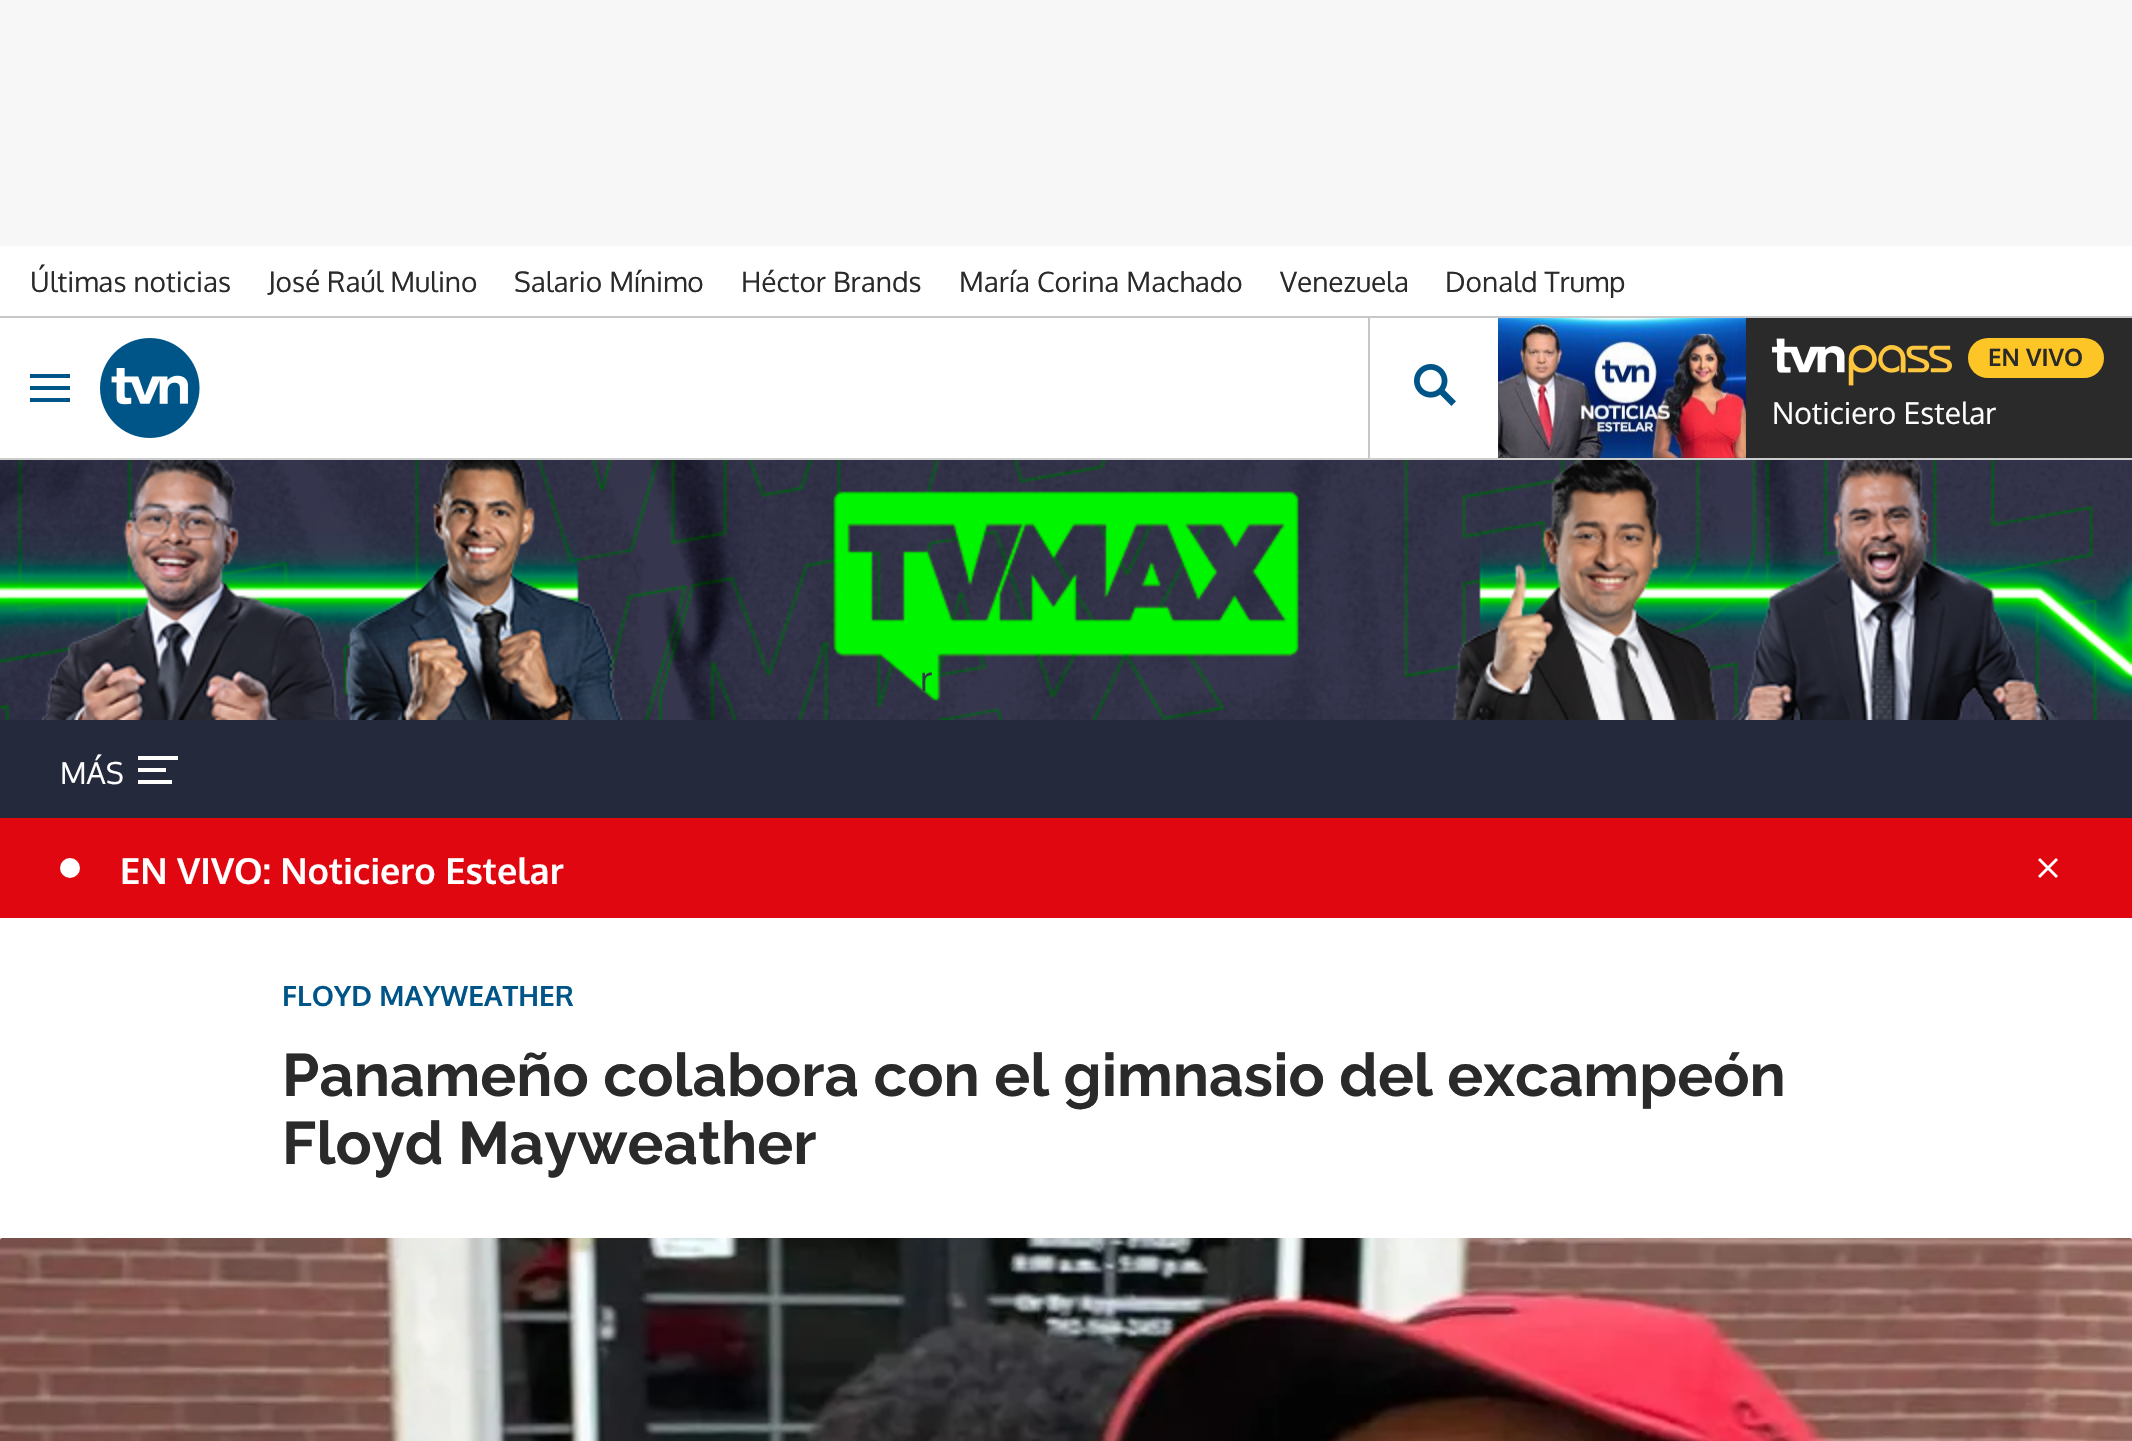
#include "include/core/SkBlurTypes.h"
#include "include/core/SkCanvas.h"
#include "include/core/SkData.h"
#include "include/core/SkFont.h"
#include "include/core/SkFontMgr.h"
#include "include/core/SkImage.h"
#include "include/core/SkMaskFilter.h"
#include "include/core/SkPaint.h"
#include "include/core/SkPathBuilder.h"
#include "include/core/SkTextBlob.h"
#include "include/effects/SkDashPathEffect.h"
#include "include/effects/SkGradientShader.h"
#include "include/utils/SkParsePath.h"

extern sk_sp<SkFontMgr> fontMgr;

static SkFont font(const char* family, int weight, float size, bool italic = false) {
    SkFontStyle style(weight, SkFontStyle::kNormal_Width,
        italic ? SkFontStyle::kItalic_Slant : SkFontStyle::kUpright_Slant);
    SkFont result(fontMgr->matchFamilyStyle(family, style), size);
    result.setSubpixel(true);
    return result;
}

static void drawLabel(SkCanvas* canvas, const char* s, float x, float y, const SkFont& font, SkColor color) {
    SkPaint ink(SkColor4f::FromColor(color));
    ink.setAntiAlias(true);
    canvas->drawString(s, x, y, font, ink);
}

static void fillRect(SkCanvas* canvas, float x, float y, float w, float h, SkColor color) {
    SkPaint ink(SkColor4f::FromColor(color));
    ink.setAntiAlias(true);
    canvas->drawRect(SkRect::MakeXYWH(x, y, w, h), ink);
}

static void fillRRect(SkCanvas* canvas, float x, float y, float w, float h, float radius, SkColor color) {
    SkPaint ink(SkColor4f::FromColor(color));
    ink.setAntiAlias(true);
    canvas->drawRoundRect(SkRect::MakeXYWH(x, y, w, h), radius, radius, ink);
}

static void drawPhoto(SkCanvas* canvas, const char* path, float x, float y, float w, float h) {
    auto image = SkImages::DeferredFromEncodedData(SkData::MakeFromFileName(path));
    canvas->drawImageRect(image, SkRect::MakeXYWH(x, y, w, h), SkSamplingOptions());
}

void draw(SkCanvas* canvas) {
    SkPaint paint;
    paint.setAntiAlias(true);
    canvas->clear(0xFFFFFFFF);
    fillRect(canvas, 0, 0, 2132, 246, 0xFFF7F7F7);
    fillRect(canvas, 0, 316, 2132, 2, 0xFFC7C7C7);
    SkFont font1 = font("Oxygen", 400, 28);
    drawLabel(canvas, "Últimas noticias", 30, 292, font1, 0xFF2A2A2A);
    drawLabel(canvas, "José Raúl Mulino", 268, 292, font1, 0xFF2A2A2A);
    drawLabel(canvas, "Salario Mínimo", 514, 292, font1, 0xFF2A2A2A);
    drawLabel(canvas, "Héctor Brands", 741, 292, font1, 0xFF2A2A2A);
    drawLabel(canvas, "María Corina Machado", 959, 292, font1, 0xFF2A2A2A);
    drawLabel(canvas, "Venezuela", 1280, 292, font1, 0xFF2A2A2A);
    canvas->save();
    canvas->clipRect(SkRect::MakeXYWH(30, 264, 2102, 34));
    drawLabel(canvas, "Donald Trump", 1445, 292, font1, 0xFF2A2A2A);
    canvas->restore();
    fillRect(canvas, 0, 458, 2132, 2, 0xFFCCCCCC);
    fillRect(canvas, 30, 374, 40, 4, 0xFF005588);
    fillRect(canvas, 30, 386, 40, 4, 0xFF005588);
    fillRect(canvas, 30, 398, 40, 4, 0xFF005588);
    drawPhoto(canvas, "assets/img1.png", 100, 338, 100, 100);
    fillRect(canvas, 1368, 318, 2, 140, 0xFFC7C7C7);
    drawPhoto(canvas, "assets/img2.png", 1414, 364, 42, 42);
    fillRect(canvas, 1498, 318, 634, 140, 0xFF2A2A2A);
    drawPhoto(canvas, "assets/img3.png", 1498, 318, 248, 140);
    drawPhoto(canvas, "assets/img4.png", 1772, 338, 180, 48);
    fillRRect(canvas, 1968, 338, 136, 40, 20, 0xFFFEC526);
    SkFont font2 = font("Oxygen", 700, 24);
    drawLabel(canvas, "EN VIVO", 1988, 366, font2, 0xFF2A2A2A);
    SkFont font3 = font("Oxygen", 400, 30);
    drawLabel(canvas, "Noticiero Estelar", 1772, 424, font3, 0xFFFFFFFF);
    drawPhoto(canvas, "assets/img5.png", 0, 460, 2132, 260);
    fillRect(canvas, 0, 720, 2132, 98, 0xFF24293B);
    drawLabel(canvas, "MÁS", 60, 784, font3, 0xFFFFFFFF);
    fillRect(canvas, 138, 756, 40, 4, 0xFFFFFFFF);
    fillRect(canvas, 138, 768, 28, 4, 0xFFFFFFFF);
    fillRect(canvas, 138, 780, 34, 4, 0xFFFFFFFF);
    SkFont font4 = font("Oxygen", 400, 34);
    drawLabel(canvas, "r", 920, 691, font4, 0xFF2F3B45);
    SkFont font5 = font("Oxygen", 700, 28);
    drawLabel(canvas, "FLOYD MAYWEATHER", 282, 1006, font5, 0xFF005588);
    SkFont font6 = font("Raleway", 100, 60);
    drawLabel(canvas, "Panameño colabora con el gimnasio del excampeón", 282, 1096, font6, 0xFF2A2A2A);
    drawLabel(canvas, "Floyd Mayweather", 282, 1164, font6, 0xFF2A2A2A);
    drawPhoto(canvas, "assets/img6.png", 0, 1238, 2132, 203);
    fillRect(canvas, 0, 818, 2132, 100, 0xFFE00710);
    paint.setColor(0xFFFFFFFF);
    canvas->drawCircle(70, 868, 10, paint);
    SkFont font7 = font("Oxygen", 700, 36);
    drawLabel(canvas, "EN VIVO: Noticiero Estelar", 120, 884, font7, 0xFFFFFFFF);
    drawPhoto(canvas, "assets/img7.png", 2038, 858, 20, 20);
}
